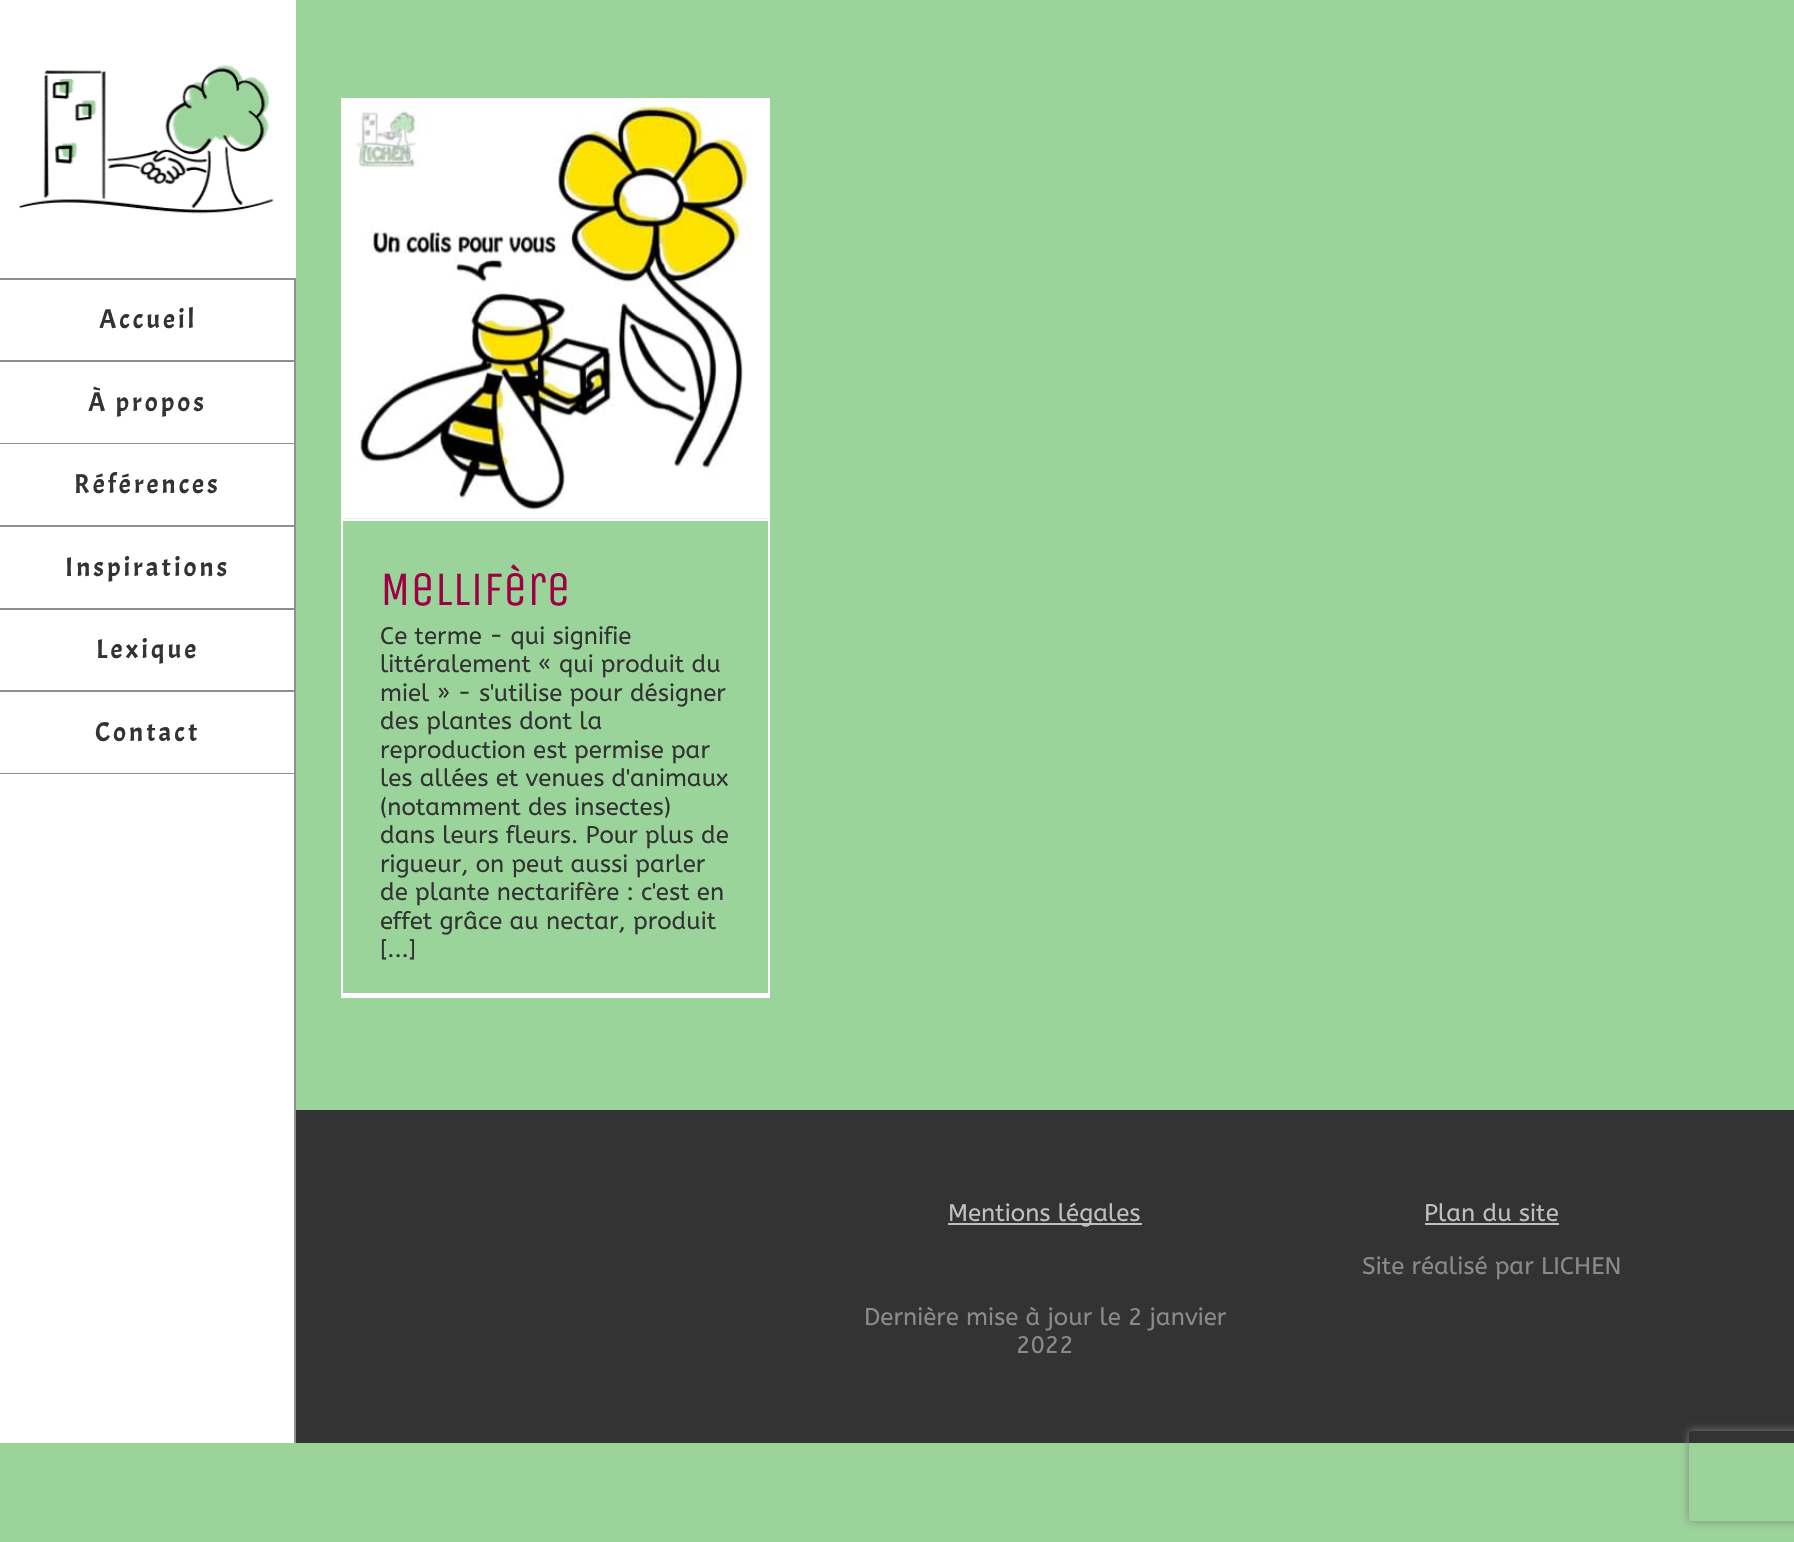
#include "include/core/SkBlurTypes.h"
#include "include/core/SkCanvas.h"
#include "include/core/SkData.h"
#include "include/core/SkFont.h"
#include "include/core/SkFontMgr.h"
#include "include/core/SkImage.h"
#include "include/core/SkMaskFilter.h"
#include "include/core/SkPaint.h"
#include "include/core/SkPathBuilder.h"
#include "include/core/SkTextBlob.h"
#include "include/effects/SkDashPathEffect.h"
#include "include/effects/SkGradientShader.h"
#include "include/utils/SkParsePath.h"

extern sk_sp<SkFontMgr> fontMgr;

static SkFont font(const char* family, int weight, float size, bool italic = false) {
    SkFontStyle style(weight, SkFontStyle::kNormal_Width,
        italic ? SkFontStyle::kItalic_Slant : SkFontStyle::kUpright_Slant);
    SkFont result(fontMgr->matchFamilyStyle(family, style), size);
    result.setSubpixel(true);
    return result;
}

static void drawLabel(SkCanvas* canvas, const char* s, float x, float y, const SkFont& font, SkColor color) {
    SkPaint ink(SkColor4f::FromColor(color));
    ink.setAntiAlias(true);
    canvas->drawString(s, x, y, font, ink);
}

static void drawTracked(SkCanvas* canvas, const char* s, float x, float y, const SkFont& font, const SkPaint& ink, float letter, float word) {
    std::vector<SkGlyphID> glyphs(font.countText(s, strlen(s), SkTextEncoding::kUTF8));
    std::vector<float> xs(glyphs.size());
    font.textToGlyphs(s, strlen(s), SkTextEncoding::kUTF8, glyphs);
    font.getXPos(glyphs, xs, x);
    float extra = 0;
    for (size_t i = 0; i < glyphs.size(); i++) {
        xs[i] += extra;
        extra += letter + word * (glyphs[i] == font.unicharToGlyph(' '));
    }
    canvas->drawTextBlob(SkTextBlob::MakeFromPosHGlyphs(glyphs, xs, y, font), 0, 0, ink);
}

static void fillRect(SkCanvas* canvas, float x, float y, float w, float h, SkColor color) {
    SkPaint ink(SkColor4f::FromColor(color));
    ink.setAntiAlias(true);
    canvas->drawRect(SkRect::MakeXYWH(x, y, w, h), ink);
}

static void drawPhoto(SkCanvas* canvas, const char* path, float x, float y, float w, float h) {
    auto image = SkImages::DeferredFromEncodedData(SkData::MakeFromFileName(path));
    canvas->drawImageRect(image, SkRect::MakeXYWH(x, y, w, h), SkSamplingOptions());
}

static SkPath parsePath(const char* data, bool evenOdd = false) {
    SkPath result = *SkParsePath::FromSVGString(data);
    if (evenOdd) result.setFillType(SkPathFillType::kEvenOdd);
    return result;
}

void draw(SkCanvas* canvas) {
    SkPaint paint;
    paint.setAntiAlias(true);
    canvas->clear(0xFF9AD49A);
    fillRect(canvas, 0, 280, 294, 1163, 0xFFFFFFFF);
    fillRect(canvas, 294, 280, 2, 1163, 0xFF8F8F8F);
    fillRect(canvas, 0, 0, 296, 278, 0xFFFFFFFF);
    drawPhoto(canvas, "assets/img1.png", 19, 65, 255, 150);
    fillRect(canvas, 0, 278, 296, 2, 0xFF8F8F8F);
    fillRect(canvas, 0, 360, 296, 2, 0xFF8F8F8F);
    SkFont font1 = font("Acme", 400, 27);
    paint.setColor(0xFF333333);
    drawTracked(canvas, "Accueil", 99, 328, font1, paint, 3, 0);
    fillRect(canvas, 0, 443, 296, 1, 0xFF8F8F8F);
    drawTracked(canvas, "À propos", 88, 411, font1, paint, 3, 0);
    fillRect(canvas, 0, 525, 296, 2, 0xFF8F8F8F);
    drawTracked(canvas, "Références", 74, 493, font1, paint, 3, 0);
    fillRect(canvas, 0, 608, 296, 2, 0xFF8F8F8F);
    drawTracked(canvas, "Inspirations", 65, 576, font1, paint, 3, 0);
    fillRect(canvas, 0, 690, 296, 2, 0xFF8F8F8F);
    drawTracked(canvas, "Lexique", 96, 658, font1, paint, 3, 0);
    fillRect(canvas, 0, 773, 296, 1, 0xFF8F8F8F);
    drawTracked(canvas, "Contact", 95, 741, font1, paint, 3, 0);
    fillRect(canvas, 341, 98, 429, 1, 0xFFFFFFFF);
    fillRect(canvas, 768, 98, 2, 900, 0xFFFFFFFF);
    fillRect(canvas, 341, 993, 429, 5, 0xFFFFFFFF);
    fillRect(canvas, 341, 98, 2, 900, 0xFFFFFFFF);
    fillRect(canvas, 342, 519, 426, 2, 0xFFFFFFFF);
    drawPhoto(canvas, "assets/img2.png", 343, 99, 425, 420);
    SkFont font2 = font("Unica One", 400, 48);
    drawLabel(canvas, "Mellifère", 380, 605, font2, 0xFF9E0045);
    SkFont font3 = font("ABeeZee", 400, 24);
    drawLabel(canvas, "Ce terme - qui signifie", 380, 644, font3, 0xFF333333);
    drawLabel(canvas, "littéralement « qui produit du", 380, 672, font3, 0xFF333333);
    drawLabel(canvas, "miel » - s'utilise pour désigner", 380, 701, font3, 0xFF333333);
    drawLabel(canvas, "des plantes dont la", 380, 729, font3, 0xFF333333);
    drawLabel(canvas, "reproduction est permise par", 380, 758, font3, 0xFF333333);
    drawLabel(canvas, "les allées et venues d'animaux", 380, 786, font3, 0xFF333333);
    drawLabel(canvas, "(notamment des insectes)", 380, 815, font3, 0xFF333333);
    drawLabel(canvas, "dans leurs fleurs. Pour plus de", 380, 843, font3, 0xFF333333);
    drawLabel(canvas, "rigueur, on peut aussi parler", 380, 872, font3, 0xFF333333);
    drawLabel(canvas, "de plante nectarifère : c'est en", 380, 900, font3, 0xFF333333);
    drawLabel(canvas, "effet grâce au nectar, produit", 380, 929, font3, 0xFF333333);
    drawLabel(canvas, "[...]", 380, 957, font3, 0xFF333333);
    fillRect(canvas, 296, 1110, 1498, 333, 0xFF333333);
    fillRect(canvas, 948, 1223, 194, 2, 0xFFBFBFBF);
    drawLabel(canvas, "Mentions légales", 948, 1221, font3, 0xFFBFBFBF);
    drawLabel(canvas, "Dernière mise à jour le 2 janvier", 864, 1325, font3, 0xFF8C8989);
    drawLabel(canvas, "2022", 1016, 1353, font3, 0xFF8C8989);
    drawLabel(canvas, "Plan du site", 1424, 1221, font3, 0xFFBFBFBF);
    fillRect(canvas, 1425, 1223, 134, 2, 0xFFBFBFBF);
    drawLabel(canvas, "Site réalisé par LICHEN", 1362, 1274, font3, 0xFF8C8989);
    canvas->save();
    canvas->clipPath(parsePath("M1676 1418H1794V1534H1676ZM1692 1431H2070C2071.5 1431 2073 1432.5 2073 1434V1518C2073 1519.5 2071.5 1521 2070 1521H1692C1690.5 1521 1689 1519.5 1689 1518V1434C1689 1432.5 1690.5 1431 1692 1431Z", true), true);
    paint.setColor(0xFF808080);
    paint.setMaskFilter(SkMaskFilter::MakeBlur(kNormal_SkBlurStyle, 4));
    canvas->drawRoundRect(SkRect::MakeXYWH(1689, 1431, 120, 90), 3, 3, paint);
    paint.setMaskFilter(nullptr);
    canvas->restore();
}
